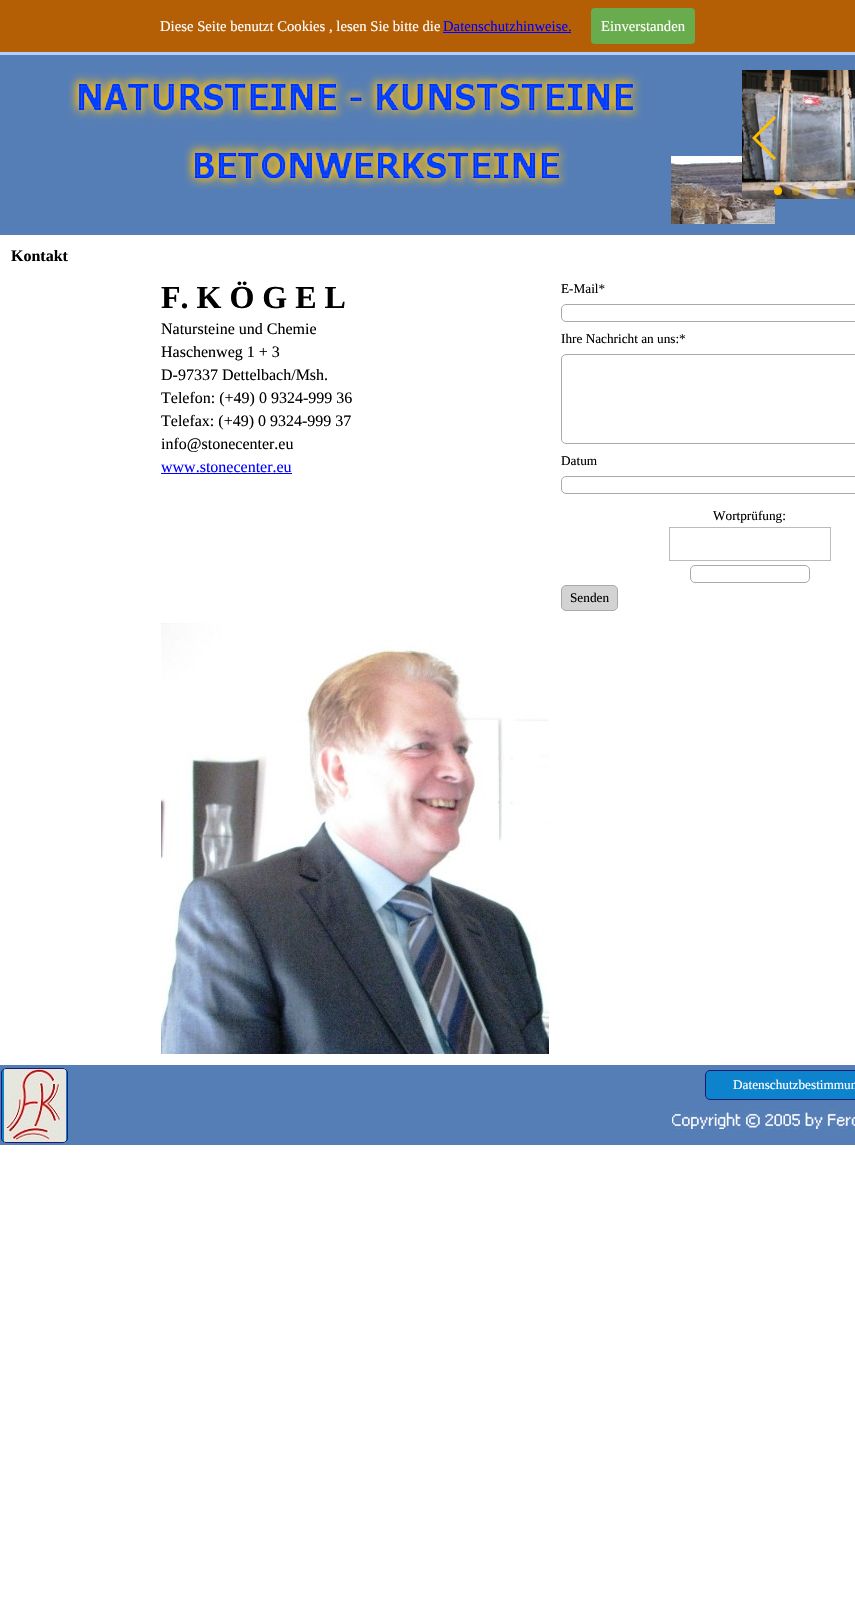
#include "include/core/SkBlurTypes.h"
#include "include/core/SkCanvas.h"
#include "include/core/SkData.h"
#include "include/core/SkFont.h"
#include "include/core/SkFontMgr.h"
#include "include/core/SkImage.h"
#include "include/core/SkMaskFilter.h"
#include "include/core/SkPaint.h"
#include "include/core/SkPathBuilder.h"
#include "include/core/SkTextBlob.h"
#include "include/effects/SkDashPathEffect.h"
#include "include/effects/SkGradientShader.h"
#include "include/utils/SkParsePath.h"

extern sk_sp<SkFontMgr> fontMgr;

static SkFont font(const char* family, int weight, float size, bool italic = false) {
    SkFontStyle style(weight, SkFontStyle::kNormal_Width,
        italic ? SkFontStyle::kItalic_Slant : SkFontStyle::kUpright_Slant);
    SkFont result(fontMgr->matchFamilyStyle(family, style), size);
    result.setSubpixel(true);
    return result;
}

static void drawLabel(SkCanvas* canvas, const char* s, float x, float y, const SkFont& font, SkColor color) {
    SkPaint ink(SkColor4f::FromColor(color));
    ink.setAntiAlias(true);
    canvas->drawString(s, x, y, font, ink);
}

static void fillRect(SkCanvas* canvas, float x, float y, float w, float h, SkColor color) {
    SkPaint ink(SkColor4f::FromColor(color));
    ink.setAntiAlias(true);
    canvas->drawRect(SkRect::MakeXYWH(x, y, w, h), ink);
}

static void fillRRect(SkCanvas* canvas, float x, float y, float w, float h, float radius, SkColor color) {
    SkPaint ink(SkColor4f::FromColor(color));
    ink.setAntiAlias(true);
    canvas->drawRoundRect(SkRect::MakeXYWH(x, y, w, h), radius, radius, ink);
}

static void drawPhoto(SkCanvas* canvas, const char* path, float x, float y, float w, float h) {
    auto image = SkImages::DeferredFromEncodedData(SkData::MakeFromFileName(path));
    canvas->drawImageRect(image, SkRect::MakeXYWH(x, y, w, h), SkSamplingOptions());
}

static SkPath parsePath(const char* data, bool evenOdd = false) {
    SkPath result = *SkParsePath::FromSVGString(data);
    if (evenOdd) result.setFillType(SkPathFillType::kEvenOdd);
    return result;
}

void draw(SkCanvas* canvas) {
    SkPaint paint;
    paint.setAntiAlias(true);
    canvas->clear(0xFFFFFFFF);
    fillRect(canvas, 0, 0, 855, 52, 0xFFB45F06);
    SkFont font1 = font("Liberation Serif", 400, 14.7f);
    drawLabel(canvas, "Diese Seite benutzt Cookies , lesen Sie bitte die", 160, 31, font1, 0xFFFFFFFF);
    drawLabel(canvas, "Datenschutzhinweise.", 443, 31, font1, 0xFF0000FF);
    fillRect(canvas, 443, 32, 128, 1, 0xFF0000FF);
    fillRRect(canvas, 591, 8, 104, 36, 4, 0xFF69AC4D);
    drawLabel(canvas, "Einverstanden", 601, 31, font1, 0xFFFFFFFF);
    fillRect(canvas, 0, 52, 855, 3, 0xFFB0D1FF);
    fillRect(canvas, 0, 55, 855, 180, 0xFF567EB6);
    drawPhoto(canvas, "assets/img1.png", 68, 72, 574, 49);
    drawPhoto(canvas, "assets/img4.png", 671, 156, 104, 68);
    drawPhoto(canvas, "assets/img2.png", 742, 70, 113, 129);
    paint.setColor(0xFFFFBF00);
    canvas->drawPath(parsePath("M752 138L774 116L776 118L756 138L776 158L774 160Z"), paint);
    canvas->drawCircle(778, 191, 4, paint);
    paint.setColor(0x66FFBF00);
    canvas->drawCircle(796, 191, 4, paint);
    canvas->drawCircle(814, 191, 4, paint);
    canvas->drawCircle(832, 191, 4, paint);
    canvas->drawCircle(850, 191, 4, paint);
    drawPhoto(canvas, "assets/img3.png", 184, 141, 384, 48);
    SkFont font2 = font("Liberation Serif", 700, 16);
    drawLabel(canvas, "Kontakt", 11, 261, font2, 0xFF000000);
    SkFont font3 = font("Liberation Serif", 700, 32);
    drawLabel(canvas, "F. K Ö G E L", 161, 308, font3, 0xFF000000);
    SkFont font4 = font("Liberation Serif", 400, 16);
    drawLabel(canvas, "Natursteine und Chemie", 161, 334, font4, 0xFF000000);
    drawLabel(canvas, "Haschenweg 1 + 3", 161, 357, font4, 0xFF000000);
    drawLabel(canvas, "D-97337 Dettelbach/Msh.", 161, 380, font4, 0xFF000000);
    drawLabel(canvas, "Telefon: (+49) 0 9324-999 36", 161, 403, font4, 0xFF000000);
    drawLabel(canvas, "Telefax: (+49) 0 9324-999 37", 161, 426, font4, 0xFF000000);
    drawLabel(canvas, "info@stonecenter.eu", 161, 449, font4, 0xFF000000);
    drawLabel(canvas, "www.stonecenter.eu", 161, 472, font4, 0xFF0000FF);
    fillRect(canvas, 161, 473, 131, 1, 0xFF0000FF);
    SkFont font5 = font("Liberation Serif", 400, 13.25f);
    drawLabel(canvas, "E-Mail*", 561, 293, font5, 0xFF000000);
    paint.setStroke(true);
    paint.setStrokeWidth(1);
    paint.setColor(0xFFA9A9A9);
    canvas->drawRoundRect(SkRect::MakeXYWH(561.5f, 304.5f, 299, 17), 4.5f, 4.5f, paint);
    drawLabel(canvas, "Ihre Nachricht an uns:*", 561, 343, font5, 0xFF000000);
    canvas->drawRoundRect(SkRect::MakeXYWH(561.5f, 354.5f, 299, 89), 4.5f, 4.5f, paint);
    drawLabel(canvas, "Datum", 561, 465, font5, 0xFF000000);
    canvas->drawRoundRect(SkRect::MakeXYWH(561.5f, 476.5f, 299, 17), 4.5f, 4.5f, paint);
    drawLabel(canvas, "Wortprüfung:", 713, 520, font5, 0xFF000000);
    paint.setColor(0xFFBBBBBB);
    canvas->drawRect(SkRect::MakeXYWH(669.5f, 527.5f, 161, 33), paint);
    paint.setColor(0xFFA9A9A9);
    canvas->drawRoundRect(SkRect::MakeXYWH(690.5f, 565.5f, 119, 17), 4.5f, 4.5f, paint);
    paint.setStroke(false);
    paint.setColor(0xFFD3D3D3);
    canvas->drawRoundRect(SkRect::MakeXYWH(561.5f, 585.5f, 56, 25), 4.5f, 4.5f, paint);
    paint.setStroke(true);
    paint.setColor(0xFFA9A9A9);
    canvas->drawRoundRect(SkRect::MakeXYWH(561.5f, 585.5f, 56, 25), 4.5f, 4.5f, paint);
    drawLabel(canvas, "Senden", 570, 602, font5, 0xFF000000);
    drawPhoto(canvas, "assets/img5.png", 161, 623, 388, 431);
    fillRect(canvas, 0, 1065, 855, 80, 0xFF567EB6);
    fillRRect(canvas, 1, 1068, 67, 75, 5, 0xFF0E83CD);
    drawPhoto(canvas, "assets/img6.png", 4, 1068, 62, 75);
    paint.setColor(0xFF191970);
    canvas->drawRoundRect(SkRect::MakeXYWH(1.5f, 1068.5f, 66, 74), 4.5f, 4.5f, paint);
    paint.setStroke(false);
    paint.setColor(0xFF0E83CD);
    canvas->drawRoundRect(SkRect::MakeXYWH(705.5f, 1070.5f, 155, 29), 4.5f, 4.5f, paint);
    paint.setStroke(true);
    paint.setColor(0xFF191970);
    canvas->drawRoundRect(SkRect::MakeXYWH(705.5f, 1070.5f, 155, 29), 4.5f, 4.5f, paint);
    drawLabel(canvas, "Datenschutzbestimmun", 733, 1089, font5, 0xFFFFFFFF);
    drawPhoto(canvas, "assets/img7.png", 672, 1111, 183, 18);
}
